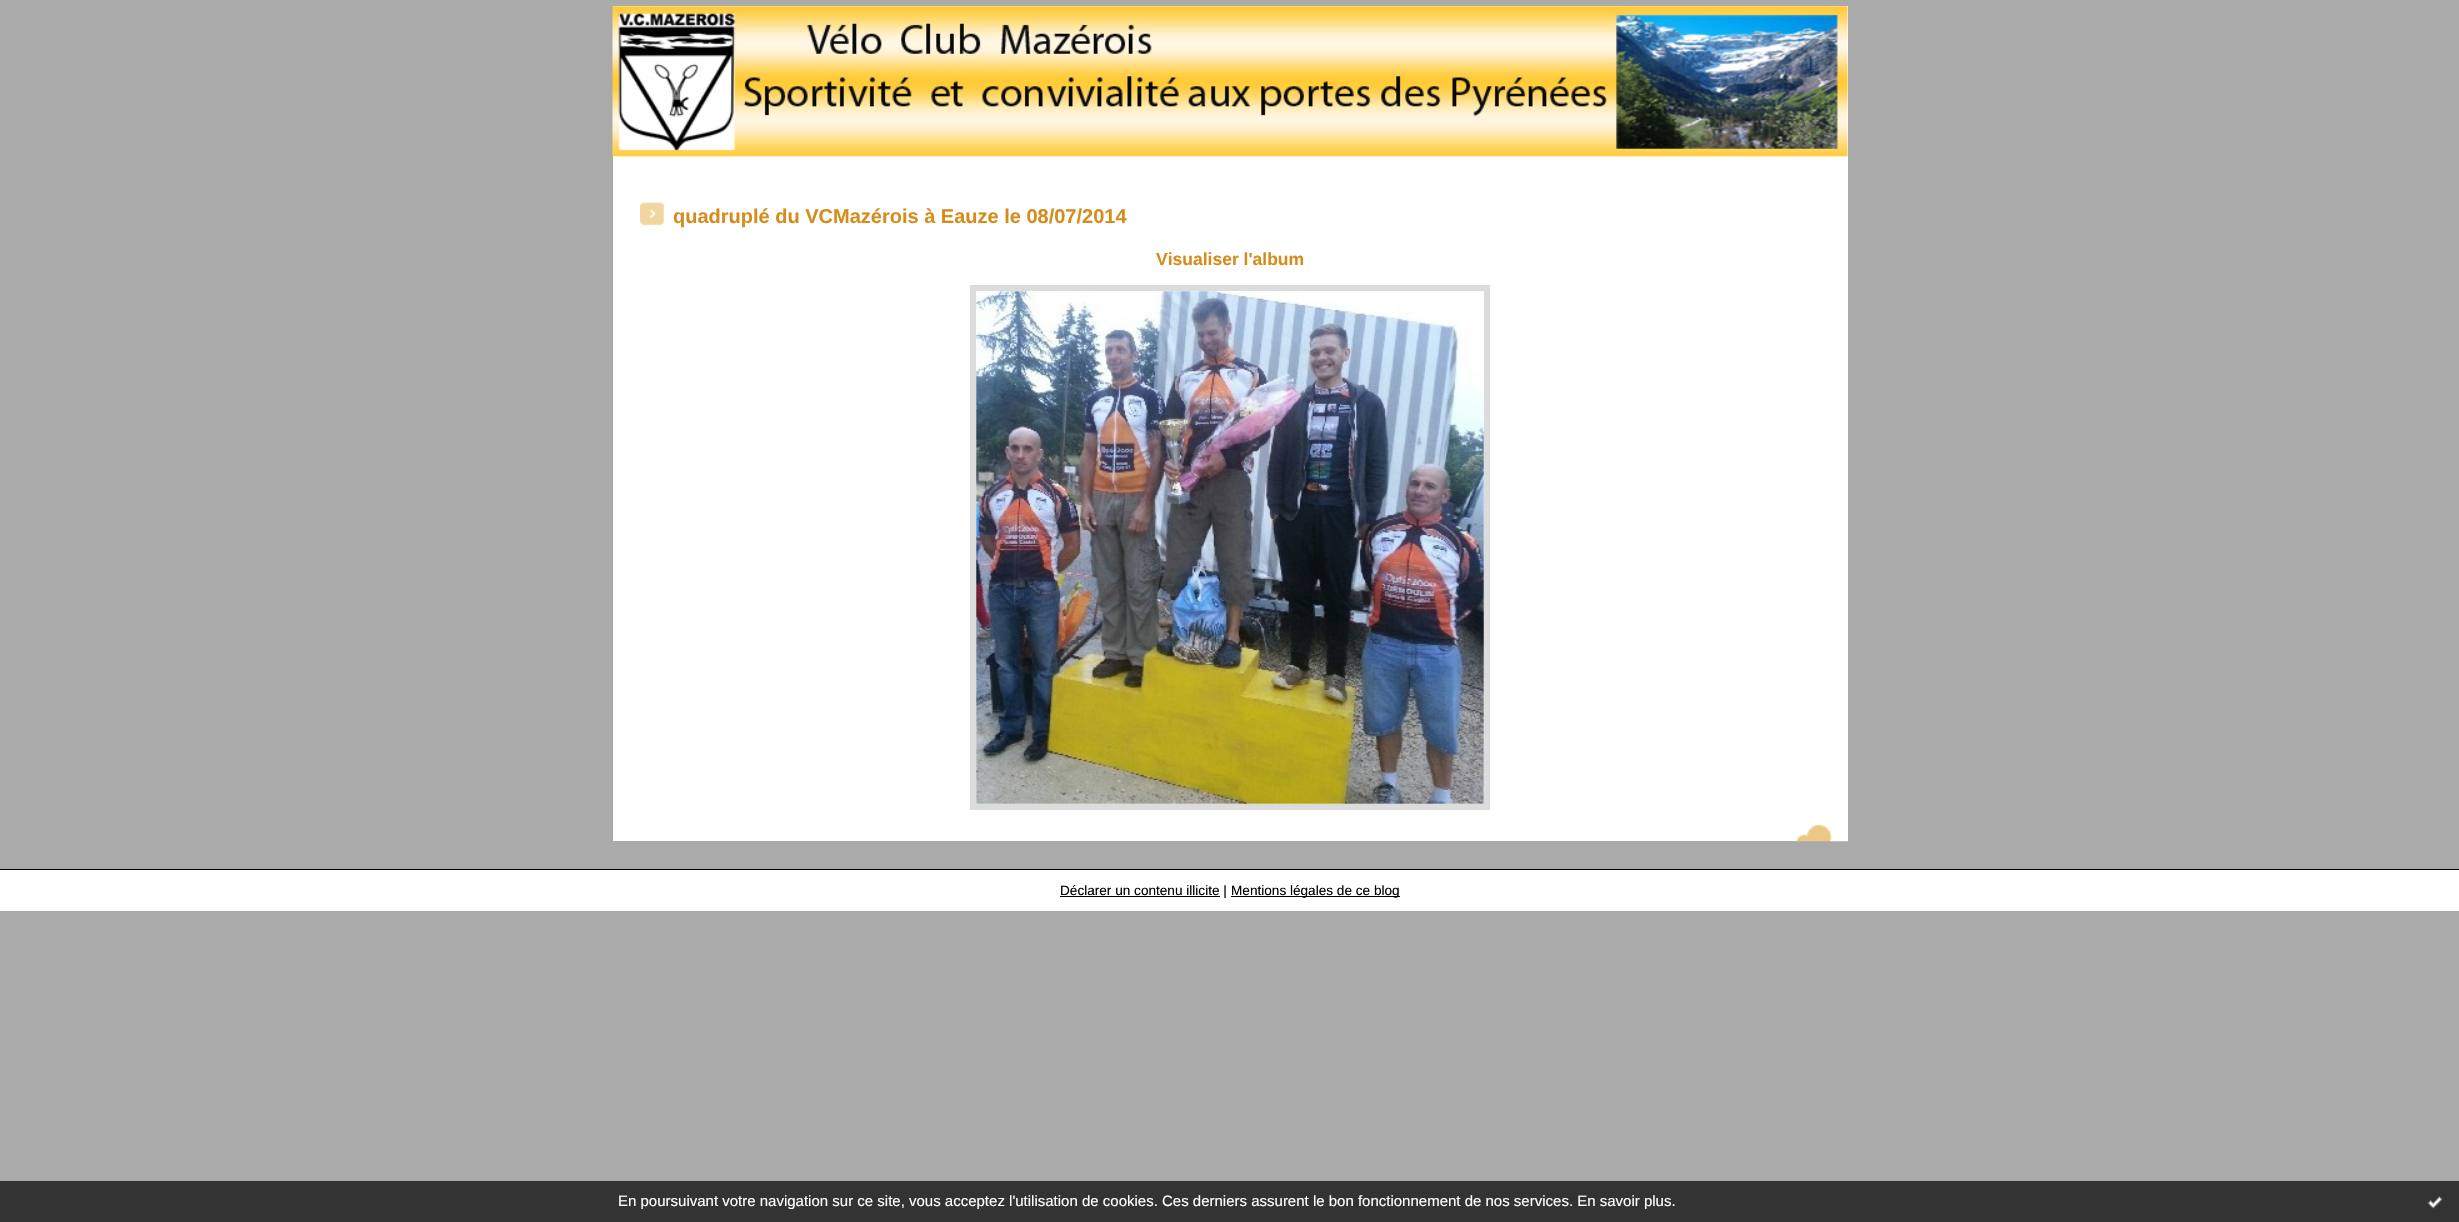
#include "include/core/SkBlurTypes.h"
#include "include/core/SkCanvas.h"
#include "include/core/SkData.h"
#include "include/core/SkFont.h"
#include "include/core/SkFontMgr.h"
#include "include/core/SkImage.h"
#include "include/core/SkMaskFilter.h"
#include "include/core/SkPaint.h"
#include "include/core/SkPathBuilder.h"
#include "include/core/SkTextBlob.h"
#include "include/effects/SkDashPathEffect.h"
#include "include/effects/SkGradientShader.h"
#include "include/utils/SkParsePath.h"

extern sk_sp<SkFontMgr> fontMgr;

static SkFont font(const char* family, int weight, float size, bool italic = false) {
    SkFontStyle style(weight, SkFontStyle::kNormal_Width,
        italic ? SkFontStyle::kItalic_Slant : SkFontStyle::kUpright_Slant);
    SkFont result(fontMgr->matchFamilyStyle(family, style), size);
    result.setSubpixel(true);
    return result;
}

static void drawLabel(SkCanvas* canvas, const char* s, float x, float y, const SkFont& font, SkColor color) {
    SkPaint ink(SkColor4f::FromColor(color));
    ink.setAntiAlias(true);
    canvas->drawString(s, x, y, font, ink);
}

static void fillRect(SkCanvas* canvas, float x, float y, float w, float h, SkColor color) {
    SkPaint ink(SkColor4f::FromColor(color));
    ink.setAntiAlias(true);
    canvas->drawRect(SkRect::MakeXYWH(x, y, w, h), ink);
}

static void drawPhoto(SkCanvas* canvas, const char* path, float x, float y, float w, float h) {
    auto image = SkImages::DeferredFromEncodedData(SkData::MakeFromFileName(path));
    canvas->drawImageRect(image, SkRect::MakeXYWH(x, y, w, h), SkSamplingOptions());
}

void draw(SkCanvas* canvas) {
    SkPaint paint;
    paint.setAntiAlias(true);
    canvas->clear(0xFFAAAAAA);
    fillRect(canvas, 613, 6, 1235, 835, 0xFFFFFFFF);
    drawPhoto(canvas, "assets/img1.png", 1796, 825, 52, 17);
    drawPhoto(canvas, "assets/img2.png", 612, 6, 1236, 151);
    drawPhoto(canvas, "assets/img3.png", 640, 202, 24, 23);
    SkFont font1 = font("Liberation Sans", 700, 20);
    drawLabel(canvas, "quadruplé du VCMazérois à Eauze le 08/07/2014", 673, 223, font1, 0xFFD68C1D);
    SkFont font2 = font("Liberation Sans", 700, 17.5f);
    drawLabel(canvas, "Visualiser l'album", 1156, 265, font2, 0xFFD68C1D);
    paint.setStroke(true);
    paint.setStrokeWidth(6);
    paint.setColor(0xFFDCDCDC);
    canvas->drawRect(SkRect::MakeXYWH(973, 288, 514, 519), paint);
    drawPhoto(canvas, "assets/img4.png", 976, 291, 508, 513);
    fillRect(canvas, 0, 870, 2459, 41, 0xFFFFFFFF);
    fillRect(canvas, 0, 869, 2459, 1, 0xFF000000);
    fillRect(canvas, 1060, 896, 160, 1, 0xFF000000);
    SkFont font3 = font("Liberation Sans", 400, 13.6f);
    drawLabel(canvas, "Déclarer un contenu illicite |", 1060, 895, font3, 0xFF000000);
    fillRect(canvas, 1231, 896, 169, 1, 0xFF000000);
    drawLabel(canvas, "Mentions légales de ce blog", 1231, 895, font3, 0xFF000000);
    fillRect(canvas, 0, 1181, 2459, 41, 0xFF333333);
    SkFont font4 = font("Liberation Sans", 400, 15);
    drawLabel(canvas, "En poursuivant votre navigation sur ce site, vous acceptez l'utilisation de cookies. Ces derniers assurent le bon fonctionnement de nos services. En savoir plus.", 618, 1206, font4, 0xFFFFFFFF);
    drawPhoto(canvas, "assets/img5.png", 2427, 1196, 16, 13);
}
